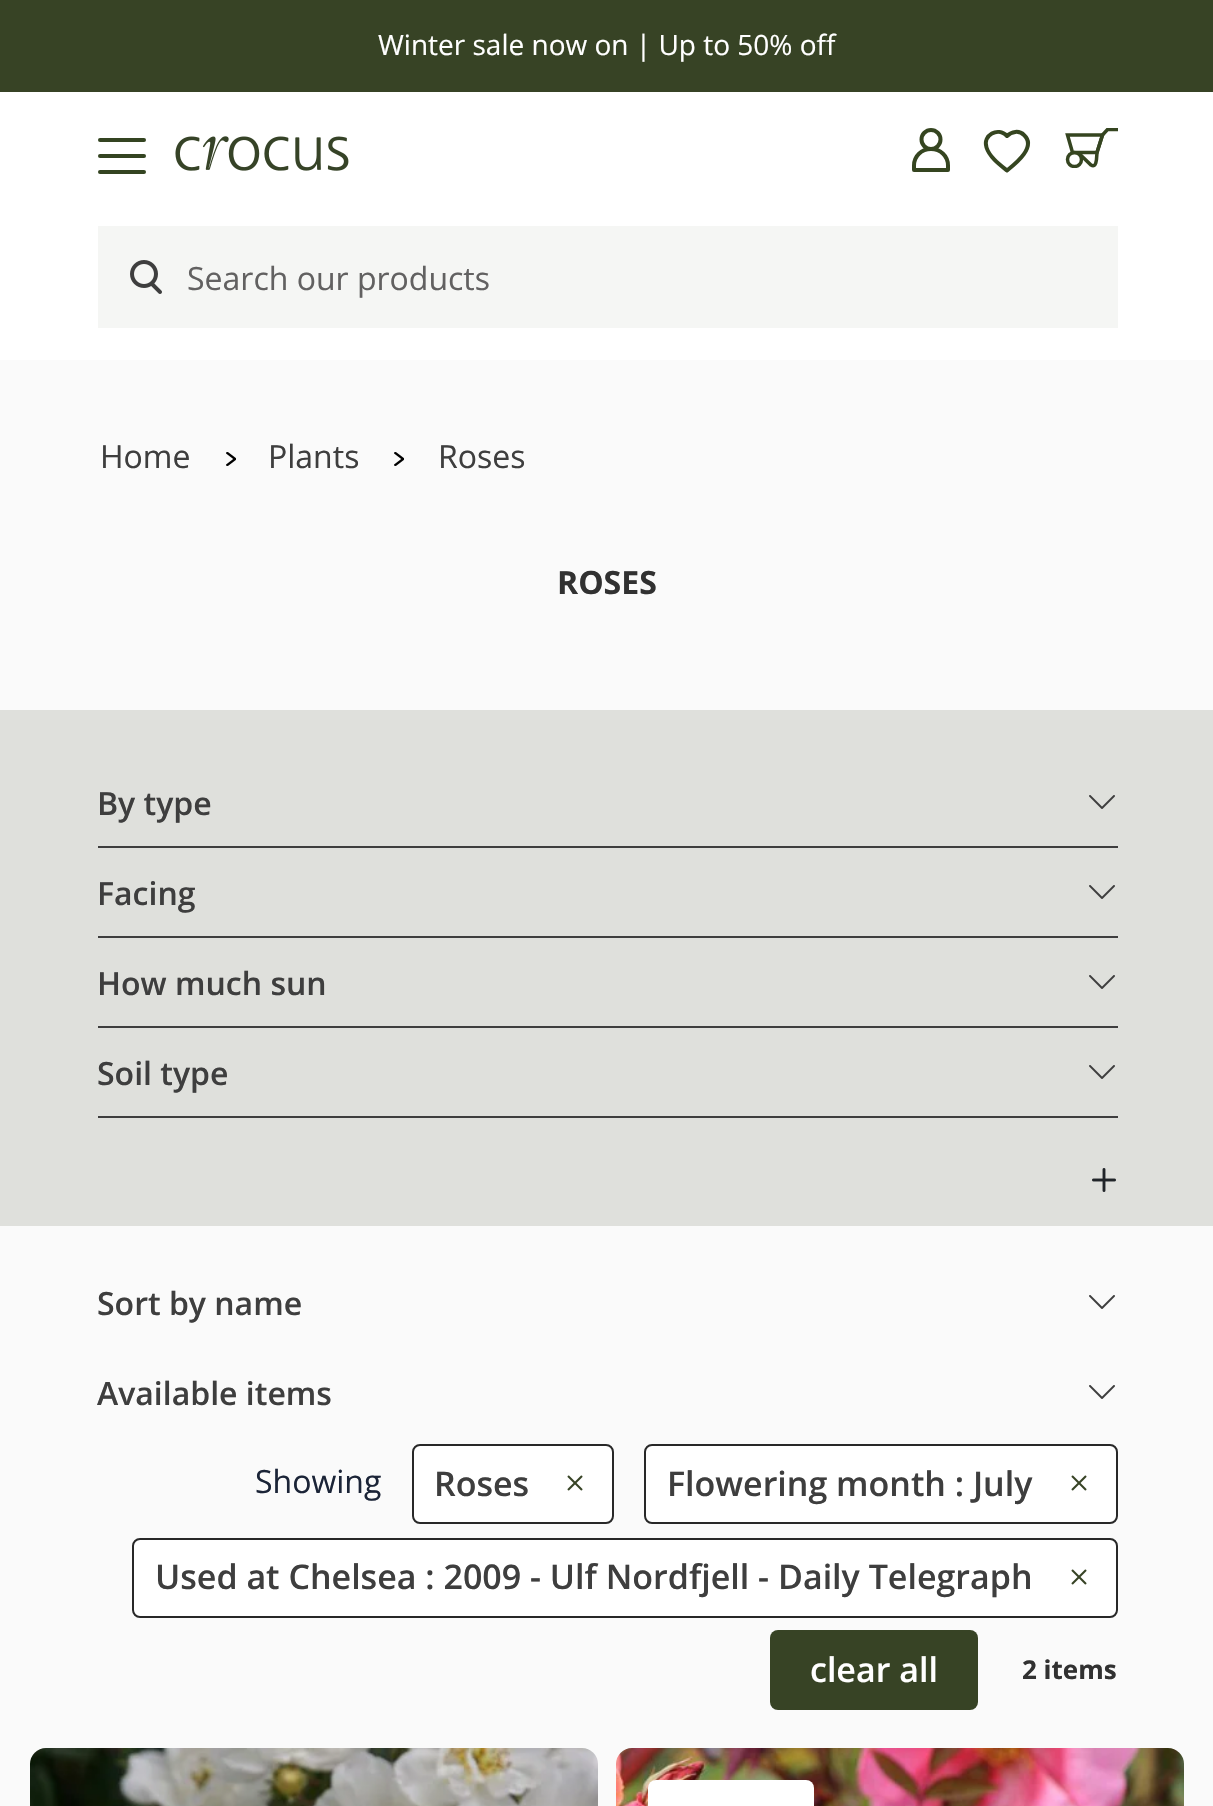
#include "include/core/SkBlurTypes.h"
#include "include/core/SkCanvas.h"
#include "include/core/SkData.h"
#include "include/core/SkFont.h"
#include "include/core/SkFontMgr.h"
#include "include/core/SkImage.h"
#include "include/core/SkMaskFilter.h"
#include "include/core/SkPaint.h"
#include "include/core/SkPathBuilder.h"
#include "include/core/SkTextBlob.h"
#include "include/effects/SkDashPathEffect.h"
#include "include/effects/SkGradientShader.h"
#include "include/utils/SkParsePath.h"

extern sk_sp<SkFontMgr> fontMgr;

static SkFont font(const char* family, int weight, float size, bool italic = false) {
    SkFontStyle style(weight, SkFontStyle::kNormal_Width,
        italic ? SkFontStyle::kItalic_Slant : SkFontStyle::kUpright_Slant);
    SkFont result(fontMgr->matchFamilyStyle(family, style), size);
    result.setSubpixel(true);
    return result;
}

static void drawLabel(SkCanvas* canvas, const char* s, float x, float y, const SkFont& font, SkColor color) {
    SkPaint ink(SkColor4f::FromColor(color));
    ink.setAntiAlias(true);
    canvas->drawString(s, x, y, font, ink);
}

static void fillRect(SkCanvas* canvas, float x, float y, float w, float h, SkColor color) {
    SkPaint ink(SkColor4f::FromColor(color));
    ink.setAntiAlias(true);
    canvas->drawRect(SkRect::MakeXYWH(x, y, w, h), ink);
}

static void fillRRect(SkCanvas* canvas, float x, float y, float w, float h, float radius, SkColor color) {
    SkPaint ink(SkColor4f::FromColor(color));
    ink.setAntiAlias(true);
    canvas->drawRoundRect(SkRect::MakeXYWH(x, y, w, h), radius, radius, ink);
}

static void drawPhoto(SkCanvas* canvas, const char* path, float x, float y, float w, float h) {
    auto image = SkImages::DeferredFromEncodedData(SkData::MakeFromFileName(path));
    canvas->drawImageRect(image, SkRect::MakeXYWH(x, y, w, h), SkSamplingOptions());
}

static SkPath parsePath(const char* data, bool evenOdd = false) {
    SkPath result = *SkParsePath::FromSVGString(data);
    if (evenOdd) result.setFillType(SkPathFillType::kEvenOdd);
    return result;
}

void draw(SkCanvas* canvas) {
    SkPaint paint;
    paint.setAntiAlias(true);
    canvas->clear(0xFFFAFAFA);
    fillRect(canvas, 0, 92, 1213, 268, 0xFFFFFFFF);
    fillRect(canvas, 0, 0, 1213, 92, 0xFF374325);
    SkFont font1 = font("Open Sans", 400, 28);
    drawLabel(canvas, "Winter sale now on | Up to 50% off", 378, 55, font1, 0xFFFFFFFF);
    fillRRect(canvas, 98, 138, 48, 4, 2, 0xFF344421);
    fillRRect(canvas, 98, 154, 48, 4, 2, 0xFF344421);
    fillRRect(canvas, 98, 170, 48, 4, 2, 0xFF344421);
    drawPhoto(canvas, "assets/img1.png", 175, 136, 174, 35);
    paint.setStroke(true);
    paint.setStrokeWidth(4);
    paint.setStrokeCap(SkPaint::kRound_Cap);
    paint.setStrokeJoin(SkPaint::kRound_Join);
    paint.setColor(0xFF354520);
    canvas->drawPath(parsePath("M931 149C940.5 149 948 156 948 165.5V170H914V165.5C914 156 921.5 149 931 149Z"), paint);
    paint.setStrokeCap(SkPaint::kButt_Cap);
    paint.setStrokeJoin(SkPaint::kMiter_Join);
    canvas->drawCircle(931, 139.5f, 9.5f, paint);
    paint.setStrokeCap(SkPaint::kRound_Cap);
    paint.setStrokeJoin(SkPaint::kRound_Join);
    canvas->drawPath(parsePath("M1024 135C1019 130 1011.5 131.5 1007 136C998 126.5 982.5 135 986.5 147.5C989.5 157 999.5 164.5 1007 170.5C1015 164 1037 147 1024 135Z"), paint);
    paint.setStrokeWidth(3.5f);
    paint.setStrokeCap(SkPaint::kButt_Cap);
    paint.setStrokeJoin(SkPaint::kMiter_Join);
    canvas->drawPath(parsePath("M1097 152.5H1072.5L1067.5 135H1102.5Z"), paint);
    canvas->save();
    canvas->clipRect(SkRect::MakeXYWH(1064, 128, 54, 40));
    canvas->drawPath(parsePath("M1078 152.5L1091 165C1097.5 169 1096.5 155 1097 152.5L1102.5 135L1107.5 129.5H1118"), paint);
    canvas->drawCircle(1074.5f, 159.5f, 7, paint);
    canvas->restore();
    fillRect(canvas, 98, 226, 1020, 102, 0xFFF5F6F4);
    drawPhoto(canvas, "assets/img2.png", 130, 260, 32, 34);
    SkFont font2 = font("Open Sans", 400, 32);
    drawLabel(canvas, "Search our products", 187, 290, font2, 0xFF626161);
    drawLabel(canvas, "Home", 100, 468, font2, 0xFF3E3E3E);
    drawPhoto(canvas, "assets/img3.png", 226, 452, 10, 14);
    drawLabel(canvas, "Plants", 268, 468, font2, 0xFF3E3E3E);
    drawPhoto(canvas, "assets/img3.png", 394, 452, 10, 14);
    drawLabel(canvas, "Roses", 438, 468, font2, 0xFF3E3E3E);
    SkFont font3 = font("Open Sans", 700, 32);
    drawLabel(canvas, "ROSES", 557, 594, font3, 0xFF313131);
    fillRect(canvas, 0, 710, 1213, 516, 0xFFDFE0DC);
    fillRect(canvas, 98, 846, 1020, 2, 0xFF3E3E3E);
    SkFont font4 = font("Open Sans", 600, 32);
    drawLabel(canvas, "By type", 97, 815, font4, 0xFF3E3E3E);
    drawPhoto(canvas, "assets/img4.png", 1089, 795, 26, 14);
    fillRect(canvas, 98, 936, 1020, 2, 0xFF3E3E3E);
    drawLabel(canvas, "Facing", 97, 905, font4, 0xFF3E3E3E);
    drawPhoto(canvas, "assets/img4.png", 1089, 885, 26, 14);
    fillRect(canvas, 98, 1026, 1020, 2, 0xFF3E3E3E);
    drawLabel(canvas, "How much sun", 97, 995, font4, 0xFF3E3E3E);
    drawPhoto(canvas, "assets/img4.png", 1089, 975, 26, 14);
    fillRect(canvas, 98, 1116, 1020, 2, 0xFF3E3E3E);
    drawLabel(canvas, "Soil type", 97, 1085, font4, 0xFF3E3E3E);
    drawPhoto(canvas, "assets/img4.png", 1089, 1065, 26, 14);
    drawPhoto(canvas, "assets/img5.png", 1092, 1168, 24, 24);
    drawLabel(canvas, "Sort by name", 97, 1315, font4, 0xFF3E3E3E);
    drawPhoto(canvas, "assets/img6.png", 1089, 1295, 26, 14);
    drawLabel(canvas, "Available items", 97, 1405, font4, 0xFF3E3E3E);
    drawPhoto(canvas, "assets/img6.png", 1089, 1385, 26, 14);
    drawLabel(canvas, "Showing", 255, 1493, font2, 0xFF1B2437);
    paint.setStroke(false);
    paint.setColor(0xFFFFFFFF);
    canvas->drawRoundRect(SkRect::MakeXYWH(413, 1445, 200, 78), 7, 7, paint);
    paint.setStroke(true);
    paint.setStrokeWidth(2);
    paint.setColor(0xFF282828);
    canvas->drawRoundRect(SkRect::MakeXYWH(413, 1445, 200, 78), 7, 7, paint);
    SkFont font5 = font("Open Sans", 600, 34);
    drawLabel(canvas, "Roses", 434, 1496, font5, 0xFF3E3E3E);
    drawPhoto(canvas, "assets/img7.png", 567, 1475, 16, 16);
    paint.setStroke(false);
    paint.setColor(0xFFFFFFFF);
    canvas->drawRoundRect(SkRect::MakeXYWH(645, 1445, 472, 78), 7, 7, paint);
    paint.setStroke(true);
    paint.setColor(0xFF282828);
    canvas->drawRoundRect(SkRect::MakeXYWH(645, 1445, 472, 78), 7, 7, paint);
    drawLabel(canvas, "Flowering month : July", 667, 1496, font5, 0xFF3E3E3E);
    drawPhoto(canvas, "assets/img7.png", 1071, 1475, 16, 16);
    paint.setStroke(false);
    paint.setColor(0xFFFFFFFF);
    canvas->drawRoundRect(SkRect::MakeXYWH(133, 1539, 984, 78), 7, 7, paint);
    paint.setStroke(true);
    paint.setColor(0xFF282828);
    canvas->drawRoundRect(SkRect::MakeXYWH(133, 1539, 984, 78), 7, 7, paint);
    drawLabel(canvas, "Used at Chelsea : 2009 - Ulf Nordfjell -", 155, 1589, font5, 0xFF3E3E3E);
    drawLabel(canvas, "Daily Telegraph", 778, 1589, font5, 0xFF3E3E3E);
    drawPhoto(canvas, "assets/img7.png", 1071, 1569, 16, 16);
    fillRRect(canvas, 770, 1630, 208, 80, 8, 0xFF374325);
    drawLabel(canvas, "clear all", 810, 1682, font5, 0xFFFFFFFF);
    SkFont font6 = font("Open Sans", 700, 26);
    drawLabel(canvas, "2 items", 1022, 1679, font6, 0xFF313131);
    fillRRect(canvas, 30, 1748, 568, 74, 16, 0xFFFFFFFF);
    drawPhoto(canvas, "assets/img8.png", 30, 1748, 568, 58);
    fillRRect(canvas, 616, 1748, 568, 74, 16, 0xFFFFFFFF);
    drawPhoto(canvas, "assets/img9.png", 616, 1748, 568, 58);
    fillRRect(canvas, 648, 1780, 166, 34, 8, 0xFFFFFFFF);
}
